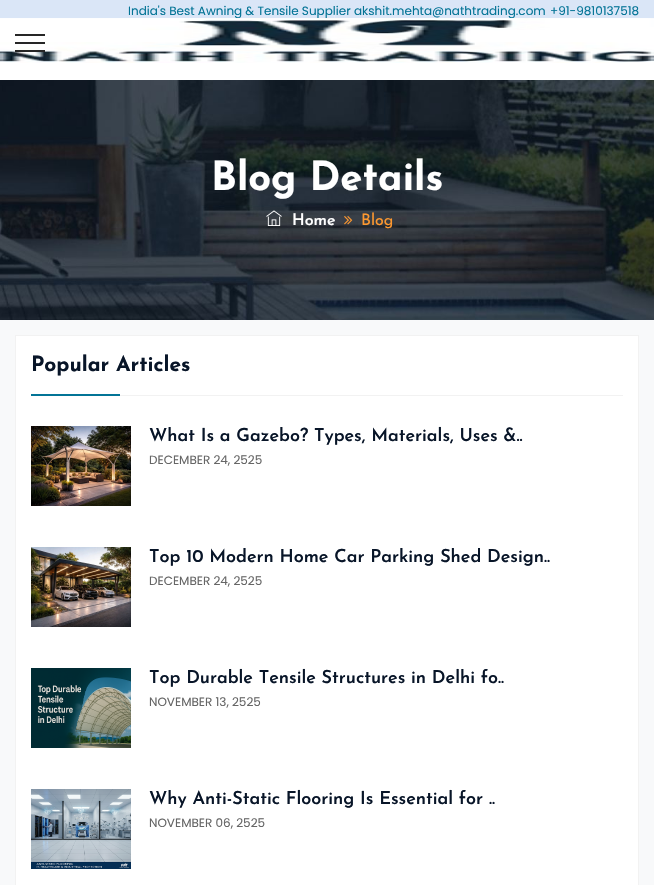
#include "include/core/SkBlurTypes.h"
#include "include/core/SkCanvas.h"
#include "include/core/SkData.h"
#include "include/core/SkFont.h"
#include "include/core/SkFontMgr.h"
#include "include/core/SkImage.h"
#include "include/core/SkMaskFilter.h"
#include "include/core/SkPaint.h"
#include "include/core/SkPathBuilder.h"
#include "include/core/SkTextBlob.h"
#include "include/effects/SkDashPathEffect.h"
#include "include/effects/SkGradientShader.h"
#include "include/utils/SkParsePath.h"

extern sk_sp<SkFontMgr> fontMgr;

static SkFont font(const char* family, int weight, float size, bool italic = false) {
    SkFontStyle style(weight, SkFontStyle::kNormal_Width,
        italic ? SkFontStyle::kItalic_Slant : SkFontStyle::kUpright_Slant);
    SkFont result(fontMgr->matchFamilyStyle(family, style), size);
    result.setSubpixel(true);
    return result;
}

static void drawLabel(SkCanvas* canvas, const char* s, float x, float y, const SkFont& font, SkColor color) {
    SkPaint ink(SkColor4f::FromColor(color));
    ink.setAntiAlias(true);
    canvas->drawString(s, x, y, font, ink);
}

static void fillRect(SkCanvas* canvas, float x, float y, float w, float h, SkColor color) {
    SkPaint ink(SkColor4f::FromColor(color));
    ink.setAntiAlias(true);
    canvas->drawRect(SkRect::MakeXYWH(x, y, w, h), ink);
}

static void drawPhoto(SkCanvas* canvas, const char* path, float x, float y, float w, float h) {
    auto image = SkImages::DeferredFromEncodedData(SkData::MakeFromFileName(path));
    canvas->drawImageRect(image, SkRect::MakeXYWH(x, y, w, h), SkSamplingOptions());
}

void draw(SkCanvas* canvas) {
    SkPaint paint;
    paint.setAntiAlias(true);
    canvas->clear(0xFFFFFFFF);
    fillRect(canvas, 0, 0, 15, 19, 0xFFDAE6F7);
    fillRect(canvas, 15, 0, 639, 27, 0xFFDAE6F7);
    SkFont font1 = font("Poppins", 400, 12);
    drawLabel(canvas, "India's Best Awning & Tensile Supplier", 128, 15, font1, 0xFF037496);
    fillRect(canvas, 334, 14, 1, 5, 0x33FFFFFF);
    drawLabel(canvas, "akshit.mehta@nathtrading.com", 354, 15, font1, 0xFF037496);
    fillRect(canvas, 530, 14, 1, 5, 0x33FFFFFF);
    drawLabel(canvas, "+91-9810137518", 550, 15, font1, 0xFF037496);
    drawPhoto(canvas, "assets/img1.png", 0, 18, 654, 45);
    fillRect(canvas, 15, 34, 30, 2, 0xFF262626);
    fillRect(canvas, 15, 42, 30, 2, 0xFF262626);
    fillRect(canvas, 15, 50, 30, 2, 0xFF262626);
    drawPhoto(canvas, "assets/img2.png", 0, 80, 654, 240);
    SkFont font2 = font("Josefin Sans", 700, 40);
    drawLabel(canvas, "Blog Details", 211, 190, font2, 0xFFFFFFFF);
    drawPhoto(canvas, "assets/img3.png", 266, 210, 16, 16);
    SkFont font3 = font("Josefin Sans", 600, 16);
    drawLabel(canvas, "Home", 292, 225, font3, 0xFFFFFFFF);
    drawPhoto(canvas, "assets/img4.png", 344, 216, 9, 9);
    SkFont font4 = font("Josefin Sans", 400, 16);
    drawLabel(canvas, "Blog", 361, 225, font4, 0xFFFE982F);
    fillRect(canvas, 0, 320, 654, 565, 0xFFF8F9FA);
    paint.setColor(0xFFFFFFFF);
    canvas->drawRect(SkRect::MakeXYWH(15.5f, 335.5f, 623, 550), paint);
    paint.setStroke(true);
    paint.setStrokeWidth(1);
    paint.setColor(0xFFF2F2F2);
    canvas->drawRect(SkRect::MakeXYWH(15.5f, 335.5f, 623, 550), paint);
    SkFont font5 = font("Josefin Sans", 700, 21);
    drawLabel(canvas, "Popular Articles", 31, 371, font5, 0xFF081528);
    fillRect(canvas, 31, 394, 89, 2, 0xFF037496);
    fillRect(canvas, 120, 395, 503, 1, 0xFFF2F2F2);
    drawPhoto(canvas, "assets/img5.png", 31, 426, 100, 80);
    SkFont font6 = font("Josefin Sans", 600, 18);
    drawLabel(canvas, "What Is a Gazebo? Types, Materials, Uses &..", 149, 441, font6, 0xFF081528);
    drawLabel(canvas, "DECEMBER 24, 2525", 149, 464, font1, 0xFF666666);
    drawPhoto(canvas, "assets/img6.png", 31, 547, 100, 80);
    drawLabel(canvas, "Top 10 Modern Home Car Parking Shed Design..", 149, 562, font6, 0xFF081528);
    drawLabel(canvas, "DECEMBER 24, 2525", 149, 585, font1, 0xFF666666);
    drawPhoto(canvas, "assets/img7.png", 31, 668, 100, 80);
    drawLabel(canvas, "Top Durable Tensile Structures in Delhi fo..", 149, 683, font6, 0xFF081528);
    drawLabel(canvas, "NOVEMBER 13, 2525", 149, 706, font1, 0xFF666666);
    drawPhoto(canvas, "assets/img8.png", 31, 789, 100, 80);
    drawLabel(canvas, "Why Anti-Static Flooring Is Essential for ..", 149, 804, font6, 0xFF081528);
    drawLabel(canvas, "NOVEMBER 06, 2525", 149, 827, font1, 0xFF666666);
}
